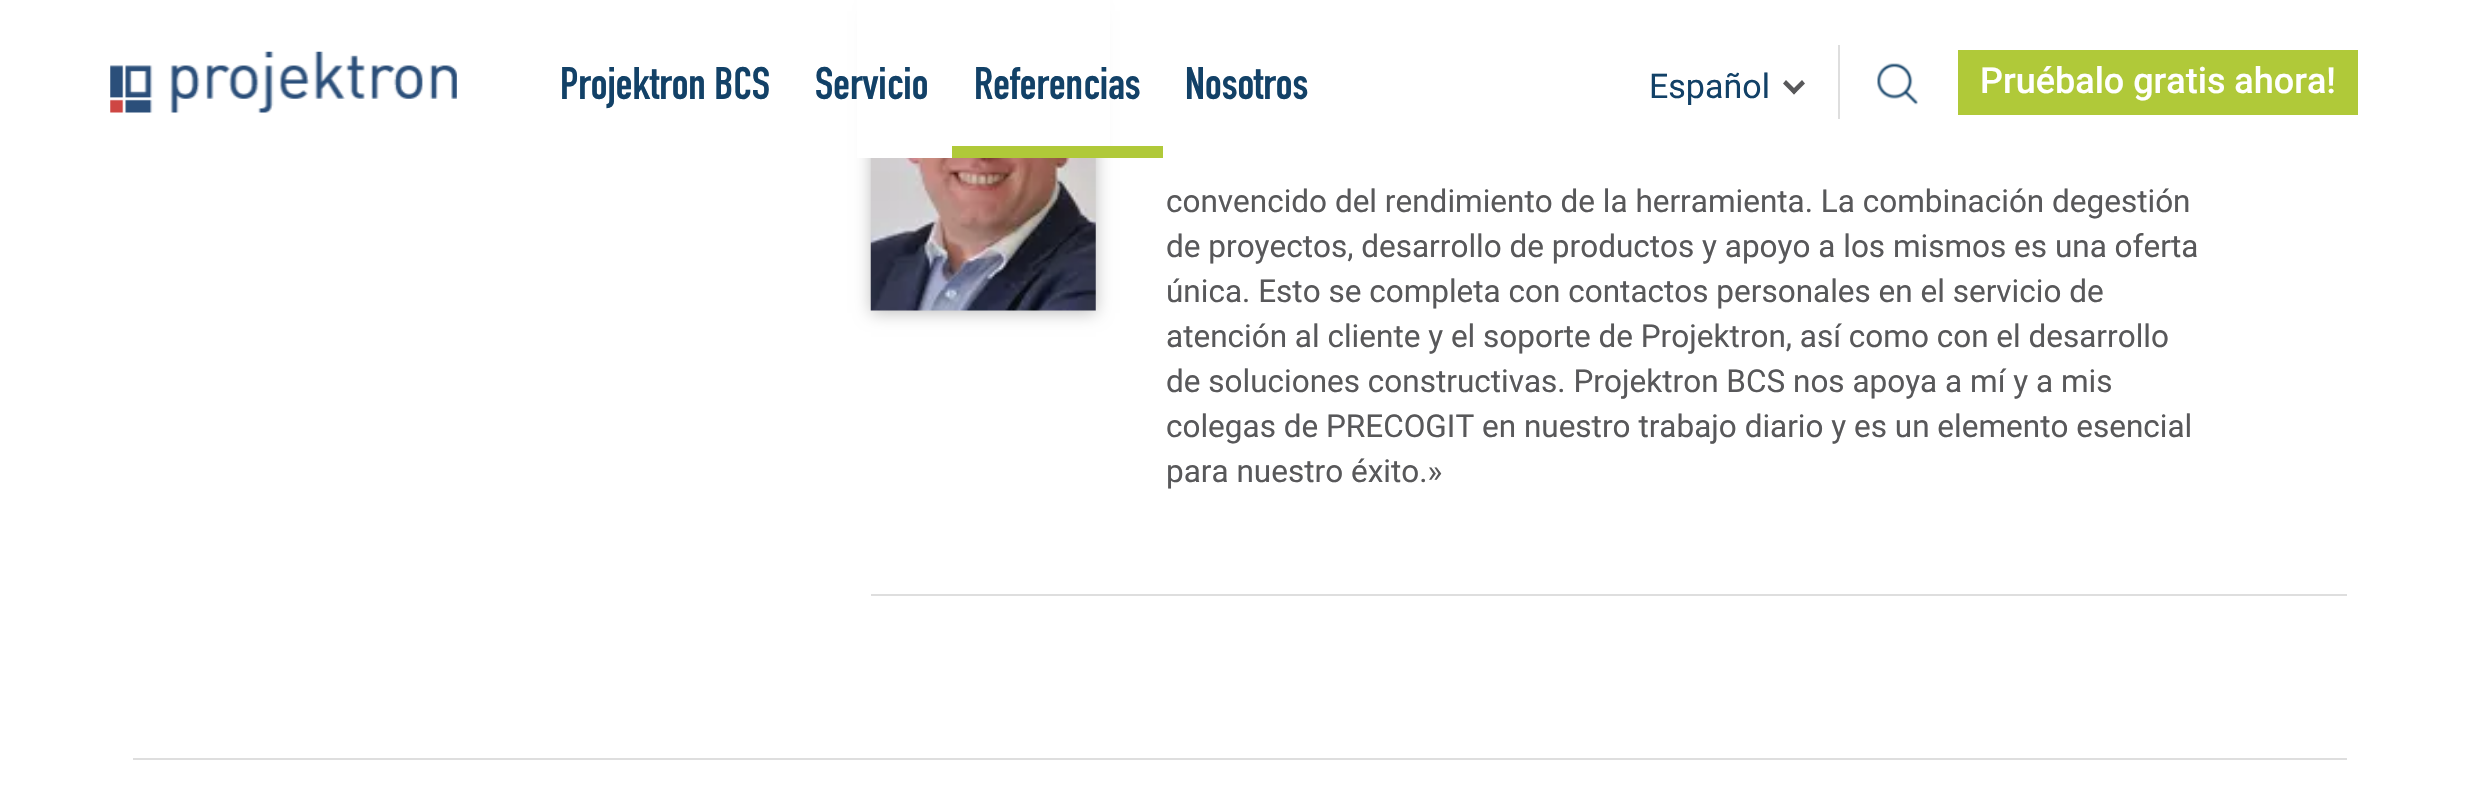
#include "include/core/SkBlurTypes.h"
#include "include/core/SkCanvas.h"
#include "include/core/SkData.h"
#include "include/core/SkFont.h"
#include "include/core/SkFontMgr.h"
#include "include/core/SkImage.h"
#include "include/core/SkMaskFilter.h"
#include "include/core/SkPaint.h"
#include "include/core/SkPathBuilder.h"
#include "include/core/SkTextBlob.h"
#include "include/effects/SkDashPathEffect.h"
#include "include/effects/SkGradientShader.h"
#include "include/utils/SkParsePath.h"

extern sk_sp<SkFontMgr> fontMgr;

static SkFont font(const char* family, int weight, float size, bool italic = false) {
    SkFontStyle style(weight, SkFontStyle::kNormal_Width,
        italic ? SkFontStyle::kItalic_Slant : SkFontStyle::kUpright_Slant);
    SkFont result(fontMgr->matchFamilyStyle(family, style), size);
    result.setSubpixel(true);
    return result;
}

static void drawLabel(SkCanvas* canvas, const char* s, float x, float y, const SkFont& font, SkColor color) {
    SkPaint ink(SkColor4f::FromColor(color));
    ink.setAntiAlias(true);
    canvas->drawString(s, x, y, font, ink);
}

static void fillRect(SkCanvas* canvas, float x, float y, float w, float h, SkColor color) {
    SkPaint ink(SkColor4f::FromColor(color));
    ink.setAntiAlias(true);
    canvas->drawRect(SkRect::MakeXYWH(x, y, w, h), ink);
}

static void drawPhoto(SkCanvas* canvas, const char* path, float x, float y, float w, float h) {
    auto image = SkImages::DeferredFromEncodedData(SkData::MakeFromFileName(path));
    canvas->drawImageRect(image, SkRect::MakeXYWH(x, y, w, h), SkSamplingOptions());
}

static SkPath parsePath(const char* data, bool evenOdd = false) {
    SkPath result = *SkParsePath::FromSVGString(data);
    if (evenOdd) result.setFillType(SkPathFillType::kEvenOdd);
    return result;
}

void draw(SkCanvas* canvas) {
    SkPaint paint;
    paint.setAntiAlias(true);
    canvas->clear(0xFFFFFFFF);
    paint.setColor(0x40000000);
    paint.setMaskFilter(SkMaskFilter::MakeBlur(kNormal_SkBlurStyle, 8));
    canvas->drawRect(SkRect::MakeXYWH(871, 11, 225, 302), paint);
    paint.setMaskFilter(nullptr);
    fillRect(canvas, 857, 0, 253, 158, 0xFFFFFFFF);
    SkFont font1 = font("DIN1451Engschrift", 400, 45);
    drawLabel(canvas, "Projektron BCS", 560, 99, font1, 0xFF124167);
    drawLabel(canvas, "Servicio", 815, 99, font1, 0xFF124167);
    fillRect(canvas, 952, 146, 211, 12, 0xFFB0C939);
    drawLabel(canvas, "Referencias", 974, 99, font1, 0xFF124167);
    drawLabel(canvas, "Nosotros", 1185, 99, font1, 0xFF124167);
    drawPhoto(canvas, "assets/img1.png", 110, 51, 347, 62);
    SkFont font2 = font("Roboto", 400, 34);
    drawLabel(canvas, "Español", 1649, 98, font2, 0xFF124167);
    paint.setColor(0xFF58585A);
    canvas->drawPath(parsePath("M1802 80L1805 83.5L1794 94.5L1791 91Z"), paint);
    canvas->drawPath(parsePath("M1786 80L1797 91L1794 94.5L1783 83.5Z"), paint);
    fillRect(canvas, 1838, 45, 2, 74, 0xFFDEDEDE);
    drawPhoto(canvas, "assets/img2.png", 1877, 63, 41, 42);
    fillRect(canvas, 1958, 50, 400, 65, 0xFFB0C939);
    SkFont font3 = font("Roboto", 500, 36);
    drawLabel(canvas, "Pruébalo gratis ahora!", 1980, 93, font3, 0xFFFFFFFF);
    fillRect(canvas, 871, 594, 1476, 2, 0xFFDEDEDE);
    drawPhoto(canvas, "assets/img3.png", 870, 158, 226, 153);
    SkFont font4 = font("Roboto", 400, 31.5f);
    drawLabel(canvas, "convencido del rendimiento de la herramienta. La combinación degestión", 1166, 212, font4, 0xFF58585A);
    drawLabel(canvas, "de proyectos, desarrollo de productos y apoyo a los mismos es una oferta", 1166, 257, font4, 0xFF58585A);
    drawLabel(canvas, "única. Esto se completa con contactos personales en el servicio de", 1166, 302, font4, 0xFF58585A);
    drawLabel(canvas, "atención al cliente y el soporte de Projektron, así como con el desarrollo", 1166, 347, font4, 0xFF58585A);
    drawLabel(canvas, "de soluciones constructivas. Projektron BCS nos apoya a mí y a mis", 1166, 392, font4, 0xFF58585A);
    drawLabel(canvas, "colegas de PRECOGIT en nuestro trabajo diario y es un elemento esencial", 1166, 437, font4, 0xFF58585A);
    drawLabel(canvas, "para nuestro éxito.»", 1166, 482, font4, 0xFF58585A);
    fillRect(canvas, 133, 758, 2214, 2, 0xFFDEDEDE);
}
